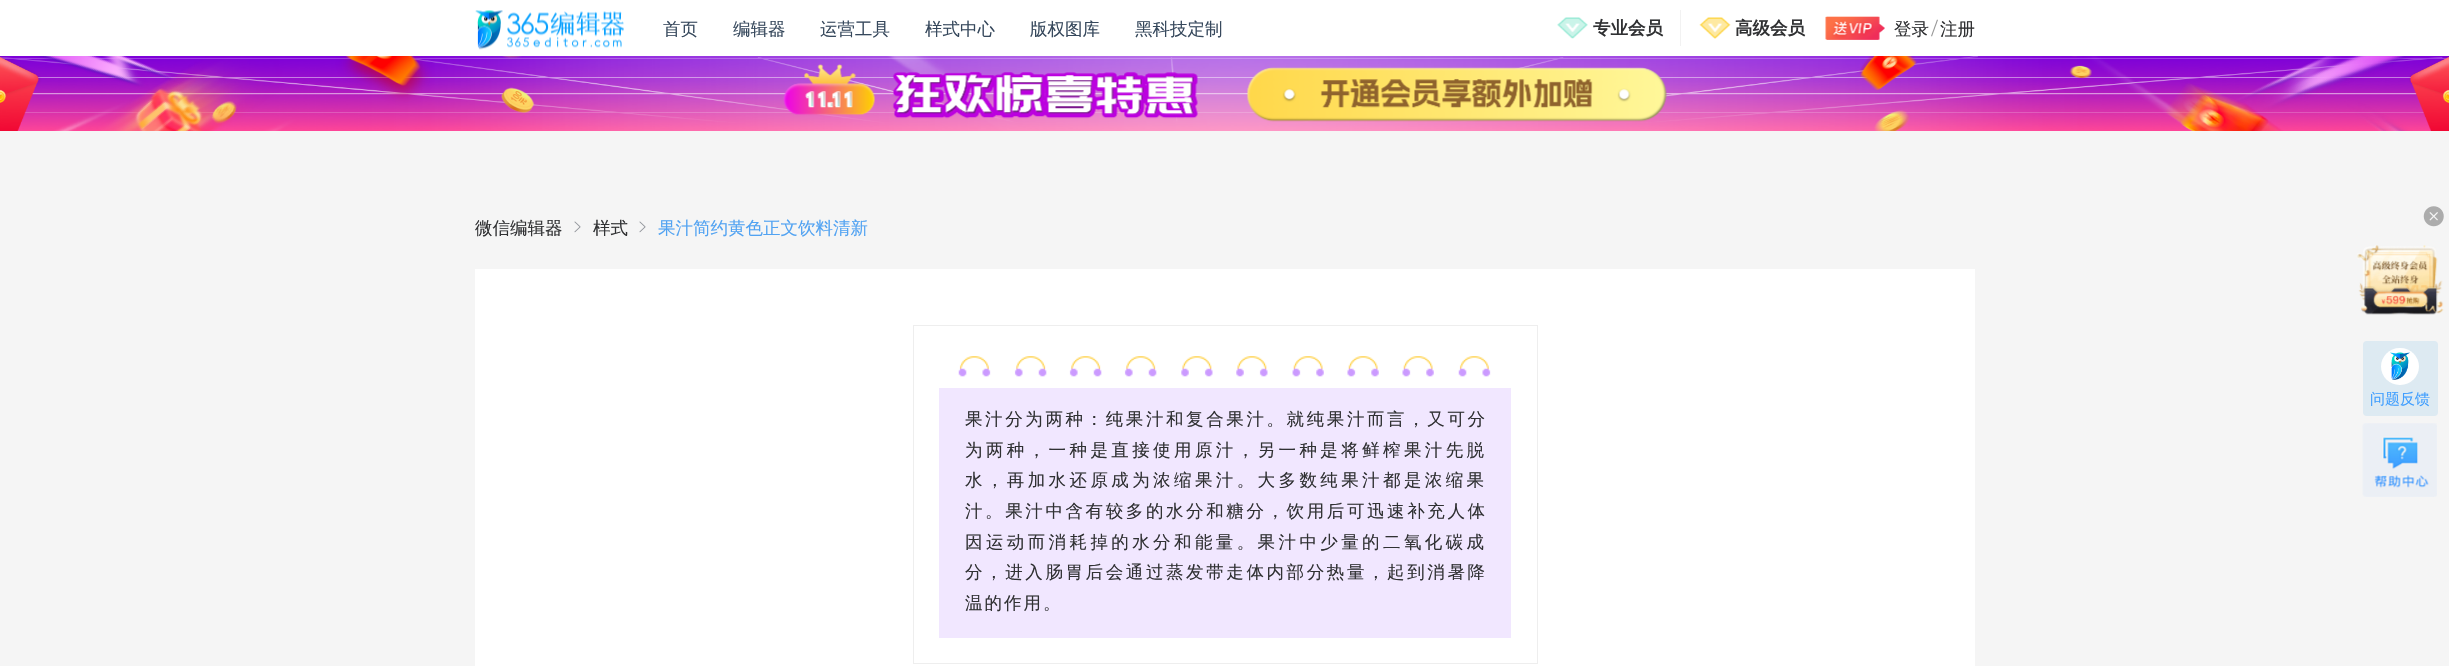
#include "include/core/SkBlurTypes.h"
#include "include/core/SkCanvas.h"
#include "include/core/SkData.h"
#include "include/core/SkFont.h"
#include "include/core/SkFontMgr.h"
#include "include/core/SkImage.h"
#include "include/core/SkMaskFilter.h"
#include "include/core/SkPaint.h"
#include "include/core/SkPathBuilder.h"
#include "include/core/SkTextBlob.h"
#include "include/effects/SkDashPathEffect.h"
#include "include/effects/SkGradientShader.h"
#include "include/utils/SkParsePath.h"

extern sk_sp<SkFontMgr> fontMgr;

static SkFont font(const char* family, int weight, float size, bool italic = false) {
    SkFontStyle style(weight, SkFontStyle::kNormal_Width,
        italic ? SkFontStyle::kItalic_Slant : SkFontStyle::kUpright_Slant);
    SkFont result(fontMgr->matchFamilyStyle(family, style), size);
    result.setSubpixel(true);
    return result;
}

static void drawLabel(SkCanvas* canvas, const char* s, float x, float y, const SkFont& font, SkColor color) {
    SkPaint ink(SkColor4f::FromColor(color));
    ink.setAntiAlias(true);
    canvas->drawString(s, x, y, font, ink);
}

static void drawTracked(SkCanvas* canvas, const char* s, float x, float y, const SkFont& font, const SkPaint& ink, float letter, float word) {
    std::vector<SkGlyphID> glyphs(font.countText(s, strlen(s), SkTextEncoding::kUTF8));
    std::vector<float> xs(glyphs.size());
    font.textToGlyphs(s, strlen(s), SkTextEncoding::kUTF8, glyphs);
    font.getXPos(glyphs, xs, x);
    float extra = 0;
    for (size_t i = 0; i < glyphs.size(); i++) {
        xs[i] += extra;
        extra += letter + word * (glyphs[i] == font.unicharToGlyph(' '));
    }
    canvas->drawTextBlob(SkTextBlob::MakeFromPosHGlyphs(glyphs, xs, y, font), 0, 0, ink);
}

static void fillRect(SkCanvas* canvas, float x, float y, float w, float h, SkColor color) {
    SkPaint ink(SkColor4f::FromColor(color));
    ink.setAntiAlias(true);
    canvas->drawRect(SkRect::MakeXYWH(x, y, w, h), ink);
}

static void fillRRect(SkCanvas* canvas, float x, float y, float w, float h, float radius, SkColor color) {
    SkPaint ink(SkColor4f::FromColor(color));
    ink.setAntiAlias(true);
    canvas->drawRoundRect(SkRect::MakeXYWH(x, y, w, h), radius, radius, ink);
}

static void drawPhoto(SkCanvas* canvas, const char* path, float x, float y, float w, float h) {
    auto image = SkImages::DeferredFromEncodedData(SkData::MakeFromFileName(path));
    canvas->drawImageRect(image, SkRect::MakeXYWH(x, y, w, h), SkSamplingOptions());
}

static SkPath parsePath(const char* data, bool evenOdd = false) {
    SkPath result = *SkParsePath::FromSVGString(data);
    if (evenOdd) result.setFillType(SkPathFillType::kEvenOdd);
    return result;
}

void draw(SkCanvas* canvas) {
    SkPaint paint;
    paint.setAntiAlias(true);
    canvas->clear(0xFFF5F5F5);
    fillRect(canvas, 0, 0, 2449, 56, 0xFFFFFFFF);
    drawPhoto(canvas, "assets/img1.png", 475, 10, 149, 40);
    SkFont font1 = font("WenQuanYi Zen Hei", 500, 17.5f);
    drawLabel(canvas, "首页", 663, 35, font1, 0xFF36485C);
    drawLabel(canvas, "编辑器", 733, 35, font1, 0xFF36485C);
    drawLabel(canvas, "运营工具", 820, 35, font1, 0xFF36485C);
    drawLabel(canvas, "样式中心", 925, 35, font1, 0xFF36485C);
    drawLabel(canvas, "版权图库", 1030, 35, font1, 0xFF36485C);
    drawLabel(canvas, "黑科技定制", 1135, 35, font1, 0xFF36485C);
    drawPhoto(canvas, "assets/img2.png", 1557, 17, 31, 22);
    SkFont font2 = font("WenQuanYi Zen Hei", 700, 17.5f);
    drawLabel(canvas, "专业会员", 1593, 34, font2, 0xFF303133);
    fillRect(canvas, 1680, 10, 1, 36, 0xFFF2F2F2);
    drawPhoto(canvas, "assets/img3.png", 1699, 17, 32, 22);
    drawLabel(canvas, "高级会员", 1735, 34, font2, 0xFF303133);
    drawPhoto(canvas, "assets/img4.png", 1825, 16, 60, 24);
    drawLabel(canvas, "登录", 1894, 35, font1, 0xFF303133);
    paint.setColor(0xFF999999);
    canvas->drawPath(parsePath("M1937 19.5L1938 20L1932 36.5L1931 36Z"), paint);
    drawLabel(canvas, "注册", 1940, 35, font1, 0xFF303133);
    drawPhoto(canvas, "assets/img5.png", 0, 56, 2449, 75);
    drawPhoto(canvas, "assets/img6.png", 783, 64, 884, 58);
    drawLabel(canvas, "微信编辑器", 475, 234, font1, 0xFF303133);
    drawPhoto(canvas, "assets/img7.png", 574, 221, 7, 12);
    drawLabel(canvas, "样式", 593, 234, font1, 0xFF303133);
    drawPhoto(canvas, "assets/img7.png", 639, 221, 7, 12);
    drawLabel(canvas, "果汁简约黄色正文饮料清新", 658, 234, font1, 0xFF52A3F2);
    fillRect(canvas, 475, 269, 1500, 397, 0xFFFFFFFF);
    paint.setStroke(true);
    paint.setStrokeWidth(1);
    paint.setColor(0xFFEEEEEE);
    canvas->drawRect(SkRect::MakeXYWH(913.5f, 325.5f, 624, 338), paint);
    drawPhoto(canvas, "assets/img8.png", 958, 356, 33, 21);
    drawPhoto(canvas, "assets/img9.png", 1014, 356, 33, 21);
    drawPhoto(canvas, "assets/img10.png", 1069, 356, 33, 21);
    drawPhoto(canvas, "assets/img10.png", 1124, 356, 33, 21);
    drawPhoto(canvas, "assets/img11.png", 1181, 356, 32, 21);
    drawPhoto(canvas, "assets/img11.png", 1236, 356, 32, 21);
    drawPhoto(canvas, "assets/img12.png", 1292, 356, 32, 21);
    drawPhoto(canvas, "assets/img13.png", 1347, 356, 32, 21);
    drawPhoto(canvas, "assets/img13.png", 1402, 356, 32, 21);
    drawPhoto(canvas, "assets/img8.png", 1458, 356, 33, 21);
    fillRect(canvas, 939, 388, 572, 250, 0xFFF1E7FF);
    paint.setStroke(false);
    paint.setColor(0xFF303133);
    drawTracked(canvas, "果汁分为两种：纯果汁和复合果汁。就纯果汁而言，又可分", 965, 425, font1, paint, 2.6f, 0);
    drawTracked(canvas, "为两种，一种是直接使用原汁，另一种是将鲜榨果汁先脱", 965, 456, font1, paint, 3.4f, 0);
    drawTracked(canvas, "水，再加水还原成为浓缩果汁。大多数纯果汁都是浓缩果", 965, 486, font1, paint, 3.4f, 0);
    drawTracked(canvas, "汁。果汁中含有较多的水分和糖分，饮用后可迅速补充人体", 965, 517, font1, paint, 2.6f, 0);
    drawTracked(canvas, "因运动而消耗掉的水分和能量。果汁中少量的二氧化碳成", 965, 548, font1, paint, 3.4f, 0);
    drawTracked(canvas, "分，进入肠胃后会通过蒸发带走体内部分热量，起到消暑降", 965, 578, font1, paint, 2.6f, 0);
    drawTracked(canvas, "温的作用。", 965, 609, font1, paint, 2, 0);
    drawPhoto(canvas, "assets/img14.png", 2423, 206, 21, 21);
    drawPhoto(canvas, "assets/img15.png", 2357, 245, 87, 70);
    fillRRect(canvas, 2363, 341, 75, 75, 4, 0xFFDDEAF2);
    fillRRect(canvas, 2381, 348, 38, 37, 18.5f, 0xFFFFFFFF);
    drawPhoto(canvas, "assets/img16.png", 2390, 352, 20, 28);
    SkFont font3 = font("WenQuanYi Zen Hei", 500, 15);
    drawLabel(canvas, "问题反馈", 2370, 404, font3, 0xFF3F9EFF);
    drawPhoto(canvas, "assets/img17.png", 2362, 423, 75, 74);
}
